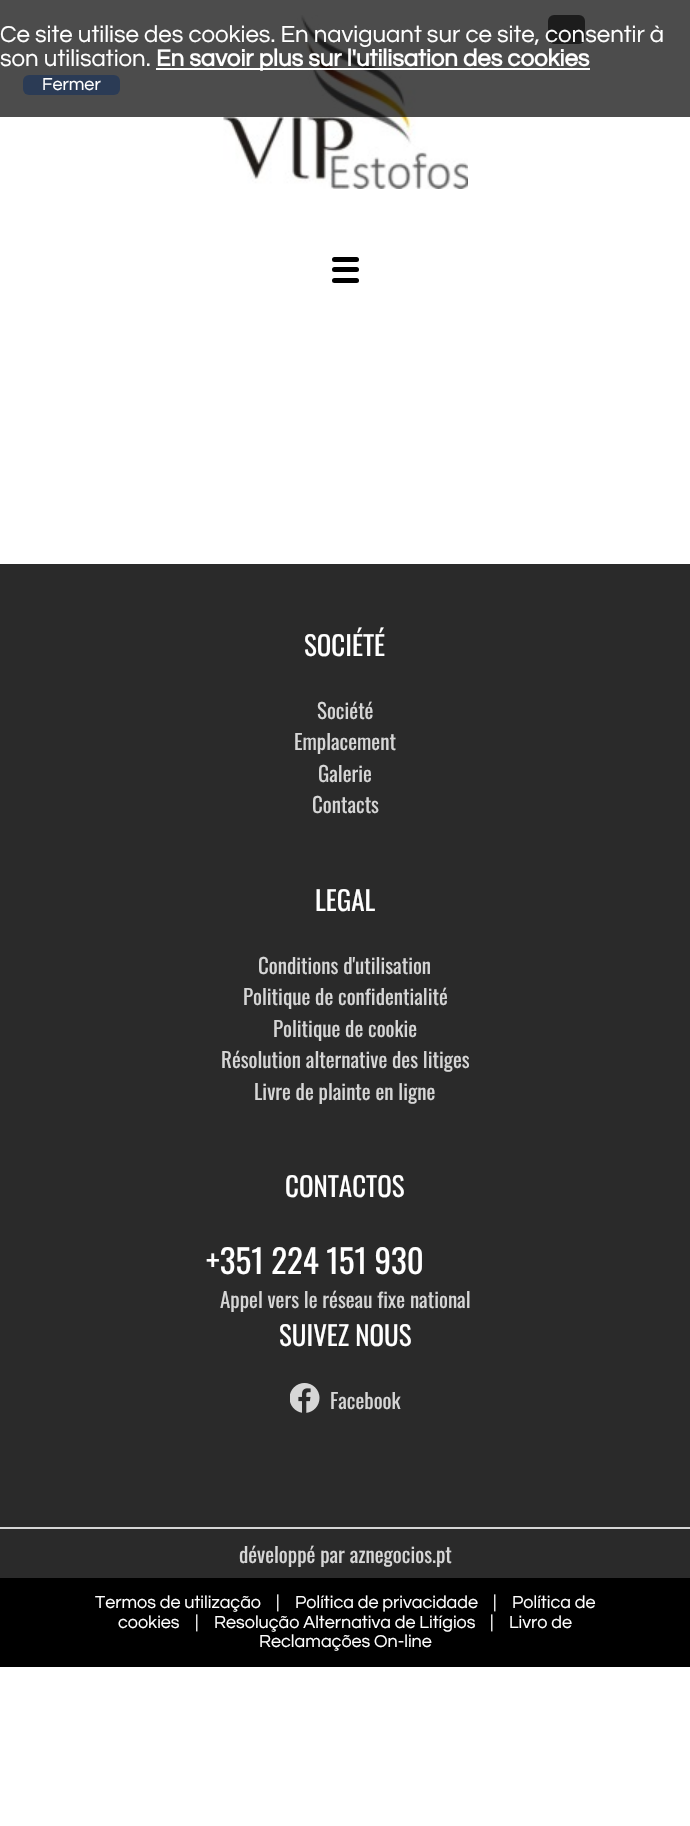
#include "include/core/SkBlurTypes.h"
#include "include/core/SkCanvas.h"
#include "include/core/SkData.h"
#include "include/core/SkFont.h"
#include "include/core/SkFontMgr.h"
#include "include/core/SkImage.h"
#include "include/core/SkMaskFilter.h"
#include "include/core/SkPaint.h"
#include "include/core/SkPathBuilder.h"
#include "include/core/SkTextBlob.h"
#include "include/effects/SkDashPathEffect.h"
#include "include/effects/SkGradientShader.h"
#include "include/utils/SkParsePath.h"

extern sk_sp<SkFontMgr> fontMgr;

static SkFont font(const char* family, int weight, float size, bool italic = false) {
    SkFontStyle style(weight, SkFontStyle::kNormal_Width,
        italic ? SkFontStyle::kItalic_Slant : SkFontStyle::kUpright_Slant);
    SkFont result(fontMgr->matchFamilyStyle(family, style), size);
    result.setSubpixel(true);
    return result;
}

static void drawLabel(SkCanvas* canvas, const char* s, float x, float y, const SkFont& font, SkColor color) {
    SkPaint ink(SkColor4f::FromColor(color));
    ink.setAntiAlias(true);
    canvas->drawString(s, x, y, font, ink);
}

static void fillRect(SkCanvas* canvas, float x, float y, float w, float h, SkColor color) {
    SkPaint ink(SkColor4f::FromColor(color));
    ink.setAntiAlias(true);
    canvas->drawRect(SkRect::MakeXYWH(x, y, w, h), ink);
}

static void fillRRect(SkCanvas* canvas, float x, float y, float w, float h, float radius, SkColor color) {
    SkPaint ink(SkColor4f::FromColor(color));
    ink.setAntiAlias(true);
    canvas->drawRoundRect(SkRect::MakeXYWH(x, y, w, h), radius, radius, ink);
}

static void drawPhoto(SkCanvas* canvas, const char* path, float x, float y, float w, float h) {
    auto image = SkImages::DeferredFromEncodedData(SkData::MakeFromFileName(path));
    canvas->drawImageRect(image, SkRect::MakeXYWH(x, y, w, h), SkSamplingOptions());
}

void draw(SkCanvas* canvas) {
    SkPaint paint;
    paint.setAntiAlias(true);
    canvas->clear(0xFFFFFFFF);
    drawPhoto(canvas, "assets/img1.png", 223, 15, 245, 174);
    fillRRect(canvas, 548, 15, 37, 29, 6, 0xFF5B5C5E);
    fillRRect(canvas, 332, 267, 27, 5, 2.5f, 0xFF000000);
    fillRRect(canvas, 332, 257, 27, 5, 2.5f, 0xFF000000);
    fillRRect(canvas, 332, 278, 27, 5, 2.5f, 0xFF000000);
    fillRect(canvas, 0, 0, 690, 117, 0xB3000000);
    SkFont font1 = font("Questrial", 400, 24);
    drawLabel(canvas, "Ce site utilise des cookies. En naviguant sur ce site, consentir à", 0, 42, font1, 0xFFFFFFFF);
    drawLabel(canvas, "son utilisation.", 0, 66, font1, 0xFFFFFFFF);
    fillRect(canvas, 156, 68, 434, 2, 0xFFFFFFFF);
    SkFont font2 = font("Questrial", 700, 24);
    drawLabel(canvas, "En savoir plus sur l'utilisation des cookies", 156, 66, font2, 0xFFFFFFFF);
    fillRRect(canvas, 23, 75, 97, 20, 6, 0xFF2B3B55);
    SkFont font3 = font("Questrial", 400, 18);
    drawLabel(canvas, "Fermer", 42, 90, font3, 0xFFFFFFFF);
    fillRect(canvas, 0, 564, 690, 963, 0xFF2A2A2A);
    SkFont font4 = font("Oswald", 400, 27);
    drawLabel(canvas, "SOCIÉTÉ", 304, 656, font4, 0xFFFFFFFF);
    SkFont font5 = font("Oswald", 400, 21);
    drawLabel(canvas, "Société", 317, 719, font5, 0xFFD6D6D6);
    drawLabel(canvas, "Emplacement", 294, 750, font5, 0xFFD6D6D6);
    drawLabel(canvas, "Galerie", 318, 782, font5, 0xFFD6D6D6);
    drawLabel(canvas, "Contacts", 312, 813, font5, 0xFFD6D6D6);
    drawLabel(canvas, "LEGAL", 315, 911, font4, 0xFFFFFFFF);
    drawLabel(canvas, "Conditions d'utilisation", 258, 974, font5, 0xFFD6D6D6);
    drawLabel(canvas, "Politique de confidentialité", 243, 1005, font5, 0xFFD6D6D6);
    drawLabel(canvas, "Politique de cookie", 273, 1037, font5, 0xFFD6D6D6);
    drawLabel(canvas, "Résolution alternative des litiges", 221, 1068, font5, 0xFFD6D6D6);
    drawLabel(canvas, "Livre de plainte en ligne", 254, 1100, font5, 0xFFD6D6D6);
    drawLabel(canvas, "CONTACTOS", 285, 1197, font4, 0xFFFFFFFF);
    SkFont font6 = font("Oswald", 400, 33);
    drawLabel(canvas, "+351 224 151 930", 206, 1274, font6, 0xFFFFFFFF);
    drawLabel(canvas, "Appel vers le réseau fixe national", 220, 1308, font5, 0xFFD6D6D6);
    drawLabel(canvas, "SUIVEZ NOUS", 279, 1346, font4, 0xFFFFFFFF);
    drawPhoto(canvas, "assets/img2.png", 290, 1383, 30, 30);
    drawLabel(canvas, "Facebook", 330, 1409, font5, 0xFFD6D6D6);
    fillRect(canvas, 0, 1529, 690, 49, 0xFF2A2A2A);
    fillRect(canvas, 0, 1527, 690, 2, 0xFFD6D6D6);
    drawLabel(canvas, "développé par aznegocios.pt", 239, 1563, font5, 0xFFD6D6D6);
    fillRect(canvas, 0, 1578, 690, 89, 0xFF000000);
    drawLabel(canvas, "Termos de utilização", 95, 1608, font3, 0xFFFFFFFF);
    drawLabel(canvas, "|", 276, 1608, font3, 0xFFFFFFFF);
    drawLabel(canvas, "Política de privacidade", 295, 1608, font3, 0xFFFFFFFF);
    drawLabel(canvas, "|", 493, 1608, font3, 0xFFFFFFFF);
    drawLabel(canvas, "Política de", 512, 1608, font3, 0xFFFFFFFF);
    drawLabel(canvas, "cookies", 118, 1628, font3, 0xFFFFFFFF);
    drawLabel(canvas, "|", 195, 1628, font3, 0xFFFFFFFF);
    drawLabel(canvas, "Resolução Alternativa de Litígios", 214, 1628, font3, 0xFFFFFFFF);
    drawLabel(canvas, "|", 490, 1628, font3, 0xFFFFFFFF);
    drawLabel(canvas, "Livro de", 509, 1628, font3, 0xFFFFFFFF);
    drawLabel(canvas, "Reclamações On-line", 259, 1647, font3, 0xFFFFFFFF);
}
